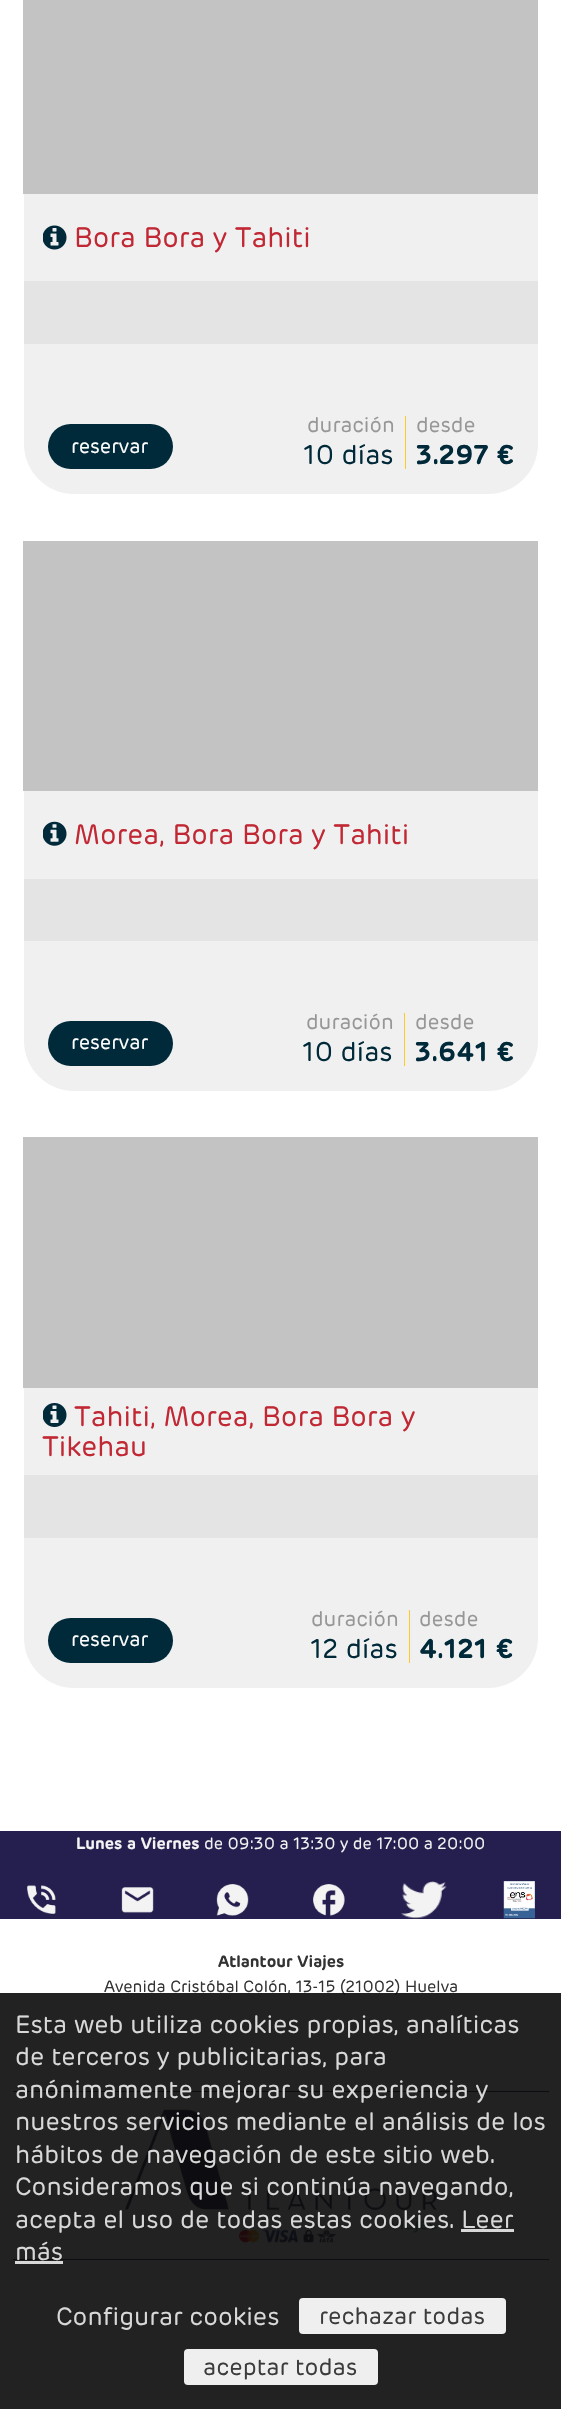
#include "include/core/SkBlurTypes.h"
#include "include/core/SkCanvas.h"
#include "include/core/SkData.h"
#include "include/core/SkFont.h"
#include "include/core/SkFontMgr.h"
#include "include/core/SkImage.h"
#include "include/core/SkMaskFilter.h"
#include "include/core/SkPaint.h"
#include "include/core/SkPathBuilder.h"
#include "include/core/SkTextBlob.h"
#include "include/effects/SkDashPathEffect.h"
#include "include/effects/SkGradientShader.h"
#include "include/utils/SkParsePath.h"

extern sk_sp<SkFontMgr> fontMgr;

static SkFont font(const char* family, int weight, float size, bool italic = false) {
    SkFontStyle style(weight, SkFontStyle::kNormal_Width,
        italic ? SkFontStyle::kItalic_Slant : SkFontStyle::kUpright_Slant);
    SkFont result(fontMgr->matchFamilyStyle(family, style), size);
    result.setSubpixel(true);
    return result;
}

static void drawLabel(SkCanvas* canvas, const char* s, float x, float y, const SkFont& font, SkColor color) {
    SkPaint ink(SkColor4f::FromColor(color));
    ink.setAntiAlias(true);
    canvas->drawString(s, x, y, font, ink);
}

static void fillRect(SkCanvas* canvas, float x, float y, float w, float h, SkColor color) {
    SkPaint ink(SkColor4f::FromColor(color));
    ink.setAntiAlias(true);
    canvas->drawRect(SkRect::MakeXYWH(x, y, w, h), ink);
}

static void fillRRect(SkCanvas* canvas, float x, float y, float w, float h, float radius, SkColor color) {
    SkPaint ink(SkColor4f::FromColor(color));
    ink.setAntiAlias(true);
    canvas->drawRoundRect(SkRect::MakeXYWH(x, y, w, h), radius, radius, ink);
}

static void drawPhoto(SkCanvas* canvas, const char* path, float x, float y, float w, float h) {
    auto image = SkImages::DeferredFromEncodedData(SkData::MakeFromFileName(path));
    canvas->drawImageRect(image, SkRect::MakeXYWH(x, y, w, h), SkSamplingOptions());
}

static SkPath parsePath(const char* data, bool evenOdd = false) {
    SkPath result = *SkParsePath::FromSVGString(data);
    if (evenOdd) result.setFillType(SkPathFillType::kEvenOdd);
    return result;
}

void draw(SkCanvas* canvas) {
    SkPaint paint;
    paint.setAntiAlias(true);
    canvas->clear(0xFFFFFFFF);
    paint.setColor(0xFFF0F0F0);
    canvas->drawPath(parsePath("M24-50H538V444C538 471.5 515.5 494 488 494H74C46.5 494 24 471.5 24 444Z"), paint);
    fillRect(canvas, 23, 0, 515, 194, 0xFFC3C3C3);
    drawPhoto(canvas, "assets/img1.png", 43, 225, 24, 25);
    SkFont font1 = font("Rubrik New", 400, 28);
    drawLabel(canvas, "Bora Bora y Tahiti", 74, 247, font1, 0xFFC12834);
    fillRect(canvas, 24, 281, 514, 63, 0xFFE4E4E4);
    fillRRect(canvas, 48, 424, 125, 45, 22.5f, 0xFF002A3A);
    SkFont font2 = font("Rubrik New", 400, 20);
    drawLabel(canvas, "reservar", 71, 453, font2, 0xFFFFFFFF);
    fillRect(canvas, 405, 416, 1, 53, 0xFFFFC82A);
    SkFont font3 = font("Rubrik New", 400, 21);
    drawLabel(canvas, "duración", 307, 432, font3, 0xFF979797);
    SkFont font4 = font("Rubrik New", 400, 27);
    drawLabel(canvas, "10 días", 303, 464, font4, 0xFF002A3A);
    drawLabel(canvas, "desde", 416, 432, font3, 0xFF979797);
    SkFont font5 = font("Rubrik New", 700, 27);
    drawLabel(canvas, "3.297 €", 416, 464, font5, 0xFF002A3A);
    canvas->drawPath(parsePath("M24 541H538V1041C538 1068.5 515.5 1091 488 1091H74C46.5 1091 24 1068.5 24 1041Z"), paint);
    fillRect(canvas, 23, 541, 515, 250, 0xFFC3C3C3);
    drawPhoto(canvas, "assets/img2.png", 43, 821, 24, 25);
    drawLabel(canvas, "Morea, Bora Bora y Tahiti", 74, 844, font1, 0xFFC12834);
    fillRect(canvas, 24, 879, 514, 62, 0xFFE4E4E4);
    fillRRect(canvas, 48, 1021, 125, 45, 22.5f, 0xFF002A3A);
    drawLabel(canvas, "reservar", 71, 1049, font2, 0xFFFFFFFF);
    fillRect(canvas, 404, 1013, 1, 53, 0xFFFFC82A);
    drawLabel(canvas, "duración", 306, 1029, font3, 0xFF979797);
    drawLabel(canvas, "10 días", 302, 1061, font4, 0xFF002A3A);
    drawLabel(canvas, "desde", 415, 1029, font3, 0xFF979797);
    drawLabel(canvas, "3.641 €", 415, 1061, font5, 0xFF002A3A);
    canvas->drawPath(parsePath("M24 1138H538V1638C538 1665.5 515.5 1688 488 1688H74C46.5 1688 24 1665.5 24 1638Z"), paint);
    fillRect(canvas, 23, 1137, 515, 251, 0xFFC3C3C3);
    drawPhoto(canvas, "assets/img3.png", 43, 1403, 24, 24);
    drawLabel(canvas, "Tahiti, Morea, Bora Bora y", 74, 1426, font1, 0xFFC12834);
    drawLabel(canvas, "Tikehau", 42, 1456, font1, 0xFFC12834);
    fillRect(canvas, 24, 1475, 514, 63, 0xFFE4E4E4);
    fillRRect(canvas, 48, 1618, 125, 45, 22.5f, 0xFF002A3A);
    drawLabel(canvas, "reservar", 71, 1646, font2, 0xFFFFFFFF);
    fillRect(canvas, 409, 1610, 1, 53, 0xFFFFC82A);
    drawLabel(canvas, "duración", 311, 1626, font3, 0xFF979797);
    drawLabel(canvas, "12 días", 310, 1658, font4, 0xFF002A3A);
    drawLabel(canvas, "desde", 419, 1626, font3, 0xFF979797);
    drawLabel(canvas, "4.121 €", 419, 1658, font5, 0xFF002A3A);
    fillRect(canvas, 0, 1831, 561, 88, 0xFF251F4F);
    SkFont font6 = font("Rubrik New", 700, 16.25f);
    drawLabel(canvas, "Lunes a Viernes", 76, 1849, font6, 0xFFF3F3F3);
    SkFont font7 = font("Rubrik New", 400, 16.25f);
    drawLabel(canvas, "de 09:30 a 13:30 y de 17:00 a 20:00", 204, 1849, font7, 0xFFF3F3F3);
    drawPhoto(canvas, "assets/img4.png", 27, 1885, 29, 29);
    drawPhoto(canvas, "assets/img5.png", 121, 1887, 33, 26);
    drawPhoto(canvas, "assets/img6.png", 216, 1884, 33, 32);
    drawPhoto(canvas, "assets/img7.png", 313, 1884, 32, 32);
    drawPhoto(canvas, "assets/img8.png", 401, 1881, 46, 38);
    drawPhoto(canvas, "assets/img9.png", 503, 1881, 32, 38);
    drawLabel(canvas, "Atlantour Viajes", 218, 1967, font6, 0xFF333333);
    drawLabel(canvas, "Avenida Cristóbal Colón, 13-15 (21002) Huelva", 104, 1992, font7, 0xFF333333);
    fillRect(canvas, 13, 2091, 536, 1, 0xFF251F4F);
    drawPhoto(canvas, "assets/img10.png", 125, 2109, 312, 134);
    fillRect(canvas, 13, 2259, 536, 1, 0xFF251F4F);
    fillRect(canvas, 0, 1993, 561, 416, 0xE60A0A0A);
    SkFont font8 = font("Rubrik New", 400, 25);
    drawLabel(canvas, "Esta web utiliza cookies propias, analíticas", 15, 2033, font8, 0xFFD8D8D8);
    drawLabel(canvas, "de terceros y publicitarias, para", 15, 2065, font8, 0xFFD8D8D8);
    drawLabel(canvas, "anónimamente mejorar su experiencia y", 15, 2098, font8, 0xFFD8D8D8);
    drawLabel(canvas, "nuestros servicios mediante el análisis de los", 15, 2130, font8, 0xFFD8D8D8);
    drawLabel(canvas, "hábitos de navegación de este sitio web.", 15, 2163, font8, 0xFFD8D8D8);
    drawLabel(canvas, "Consideramos que si continúa navegando,", 15, 2195, font8, 0xFFD8D8D8);
    drawLabel(canvas, "acepta el uso de todas estas cookies. Leer", 15, 2228, font8, 0xFFD8D8D8);
    drawLabel(canvas, "más", 15, 2260, font8, 0xFFD8D8D8);
    fillRect(canvas, 461, 2229, 53, 3, 0xFFD8D8D8);
    fillRect(canvas, 15, 2261, 48, 3, 0xFFD8D8D8);
    drawLabel(canvas, "Configurar cookies", 56, 2325, font8, 0xFFD8D8D8);
    fillRRect(canvas, 299, 2298, 207, 36, 4, 0xFFEFEFEF);
    SkFont font9 = font("Rubrik New", 400, 23.5f);
    drawLabel(canvas, "rechazar todas", 319, 2324, font9, 0xFF3C3C3C);
    fillRRect(canvas, 184, 2349, 194, 36, 4, 0xFFEFEFEF);
    drawLabel(canvas, "aceptar todas", 203, 2375, font9, 0xFF3C3C3C);
}
